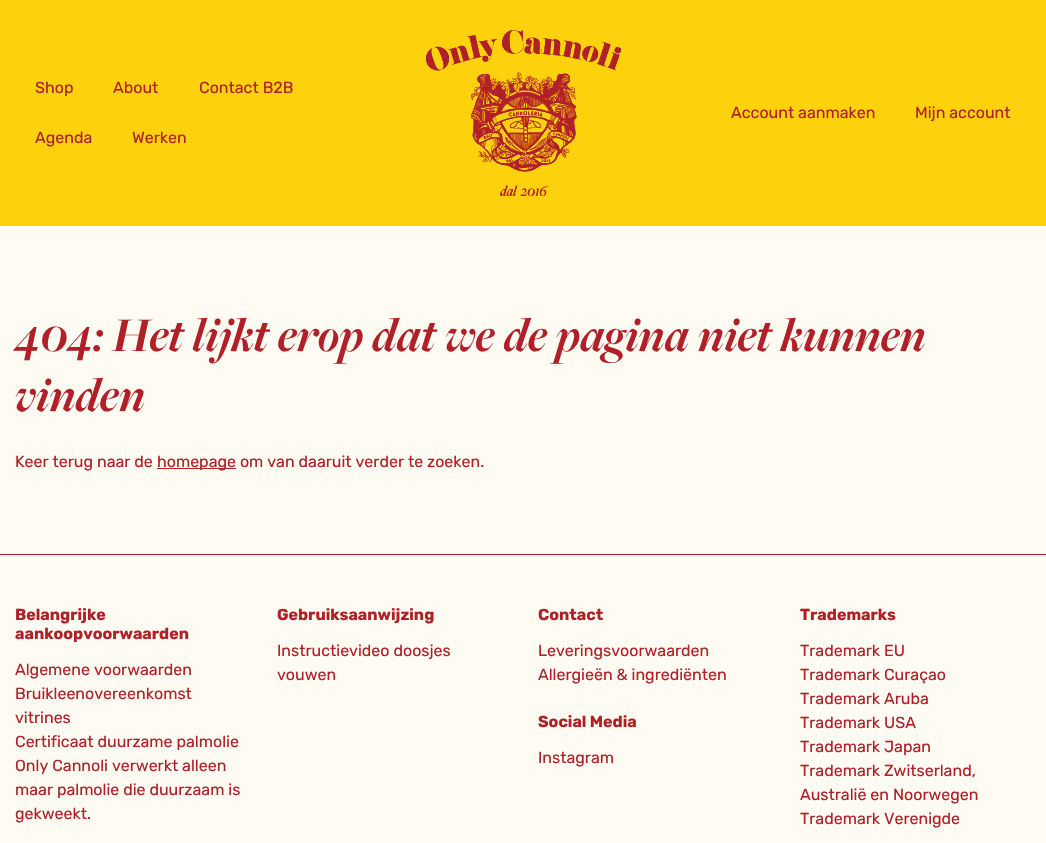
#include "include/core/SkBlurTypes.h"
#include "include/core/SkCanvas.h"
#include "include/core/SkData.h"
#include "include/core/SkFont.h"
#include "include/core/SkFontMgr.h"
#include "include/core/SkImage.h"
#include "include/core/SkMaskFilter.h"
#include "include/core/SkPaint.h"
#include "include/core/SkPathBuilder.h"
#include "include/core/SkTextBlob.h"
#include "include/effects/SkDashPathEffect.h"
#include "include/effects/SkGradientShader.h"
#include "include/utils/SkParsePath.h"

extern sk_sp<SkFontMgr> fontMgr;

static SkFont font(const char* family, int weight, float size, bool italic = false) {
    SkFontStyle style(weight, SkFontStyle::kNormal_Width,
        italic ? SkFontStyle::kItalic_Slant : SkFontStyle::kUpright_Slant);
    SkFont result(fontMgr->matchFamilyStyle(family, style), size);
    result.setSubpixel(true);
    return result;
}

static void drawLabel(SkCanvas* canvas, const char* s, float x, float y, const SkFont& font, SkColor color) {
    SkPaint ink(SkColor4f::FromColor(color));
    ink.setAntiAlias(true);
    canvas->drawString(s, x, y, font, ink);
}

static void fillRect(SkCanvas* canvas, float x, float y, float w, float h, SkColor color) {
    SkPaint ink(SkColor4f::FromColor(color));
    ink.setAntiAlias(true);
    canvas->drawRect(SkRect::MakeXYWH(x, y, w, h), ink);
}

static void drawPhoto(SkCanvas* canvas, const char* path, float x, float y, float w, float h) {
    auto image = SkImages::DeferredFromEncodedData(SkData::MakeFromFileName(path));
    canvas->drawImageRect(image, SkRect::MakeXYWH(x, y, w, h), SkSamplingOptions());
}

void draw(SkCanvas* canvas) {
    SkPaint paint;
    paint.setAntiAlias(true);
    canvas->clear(0xFFFDFBF2);
    fillRect(canvas, 0, 0, 1046, 226, 0xFFFDD10B);
    SkFont font1 = font("Rubik", 400, 16);
    drawLabel(canvas, "Shop", 35, 93, font1, 0xFFB12029);
    drawLabel(canvas, "About", 113, 93, font1, 0xFFB12029);
    drawLabel(canvas, "Contact B2B", 199, 93, font1, 0xFFB12029);
    drawLabel(canvas, "Agenda", 35, 143, font1, 0xFFB12029);
    drawLabel(canvas, "Werken", 132, 143, font1, 0xFFB12029);
    drawPhoto(canvas, "assets/img1.png", 426, 30, 195, 166);
    drawLabel(canvas, "Account aanmaken", 731, 118, font1, 0xFFB12029);
    drawLabel(canvas, "Mijn account", 915, 118, font1, 0xFFB12029);
    SkFont font2 = font("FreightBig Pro", 700, 50, true);
    drawLabel(canvas, "404: Het lijkt erop dat we de pagina niet kunnen", 15, 351, font2, 0xFFB12029);
    drawLabel(canvas, "vinden", 15, 411, font2, 0xFFB12029);
    drawLabel(canvas, "Keer terug naar de", 15, 467, font1, 0xFFB12029);
    fillRect(canvas, 157, 468, 79, 1, 0xFFB12029);
    drawLabel(canvas, "homepage om van daaruit verder te zoeken.", 157, 467, font1, 0xFFB12029);
    fillRect(canvas, 0, 554, 1046, 1, 0xFFB12029);
    SkFont font3 = font("Rubik", 700, 16);
    drawLabel(canvas, "Belangrijke", 15, 620, font3, 0xFFB12029);
    drawLabel(canvas, "aankoopvoorwaarden", 15, 639, font3, 0xFFB12029);
    drawLabel(canvas, "Algemene voorwaarden", 15, 675, font1, 0xFFB12029);
    drawLabel(canvas, "Bruikleenovereenkomst", 15, 699, font1, 0xFFB12029);
    drawLabel(canvas, "vitrines", 15, 723, font1, 0xFFB12029);
    drawLabel(canvas, "Certificaat duurzame palmolie", 15, 747, font1, 0xFFB12029);
    drawLabel(canvas, "Only Cannoli verwerkt alleen", 15, 771, font1, 0xFFB12029);
    drawLabel(canvas, "maar palmolie die duurzaam is", 15, 795, font1, 0xFFB12029);
    drawLabel(canvas, "gekweekt.", 15, 819, font1, 0xFFB12029);
    drawLabel(canvas, "Gebruiksaanwijzing", 277, 620, font3, 0xFFB12029);
    drawLabel(canvas, "Instructievideo doosjes", 277, 656, font1, 0xFFB12029);
    drawLabel(canvas, "vouwen", 277, 680, font1, 0xFFB12029);
    drawLabel(canvas, "Contact", 538, 620, font3, 0xFFB12029);
    drawLabel(canvas, "Leveringsvoorwaarden", 538, 656, font1, 0xFFB12029);
    drawLabel(canvas, "Allergieën & ingrediënten", 538, 680, font1, 0xFFB12029);
    drawLabel(canvas, "Social Media", 538, 727, font3, 0xFFB12029);
    drawLabel(canvas, "Instagram", 538, 763, font1, 0xFFB12029);
    drawLabel(canvas, "Trademarks", 800, 620, font3, 0xFFB12029);
    drawLabel(canvas, "Trademark EU", 800, 656, font1, 0xFFB12029);
    drawLabel(canvas, "Trademark Curaçao", 800, 680, font1, 0xFFB12029);
    drawLabel(canvas, "Trademark Aruba", 800, 704, font1, 0xFFB12029);
    drawLabel(canvas, "Trademark USA", 800, 728, font1, 0xFFB12029);
    drawLabel(canvas, "Trademark Japan", 800, 752, font1, 0xFFB12029);
    drawLabel(canvas, "Trademark Zwitserland,", 800, 776, font1, 0xFFB12029);
    drawLabel(canvas, "Australië en Noorwegen", 800, 800, font1, 0xFFB12029);
    drawLabel(canvas, "Trademark Verenigde", 800, 824, font1, 0xFFB12029);
}
